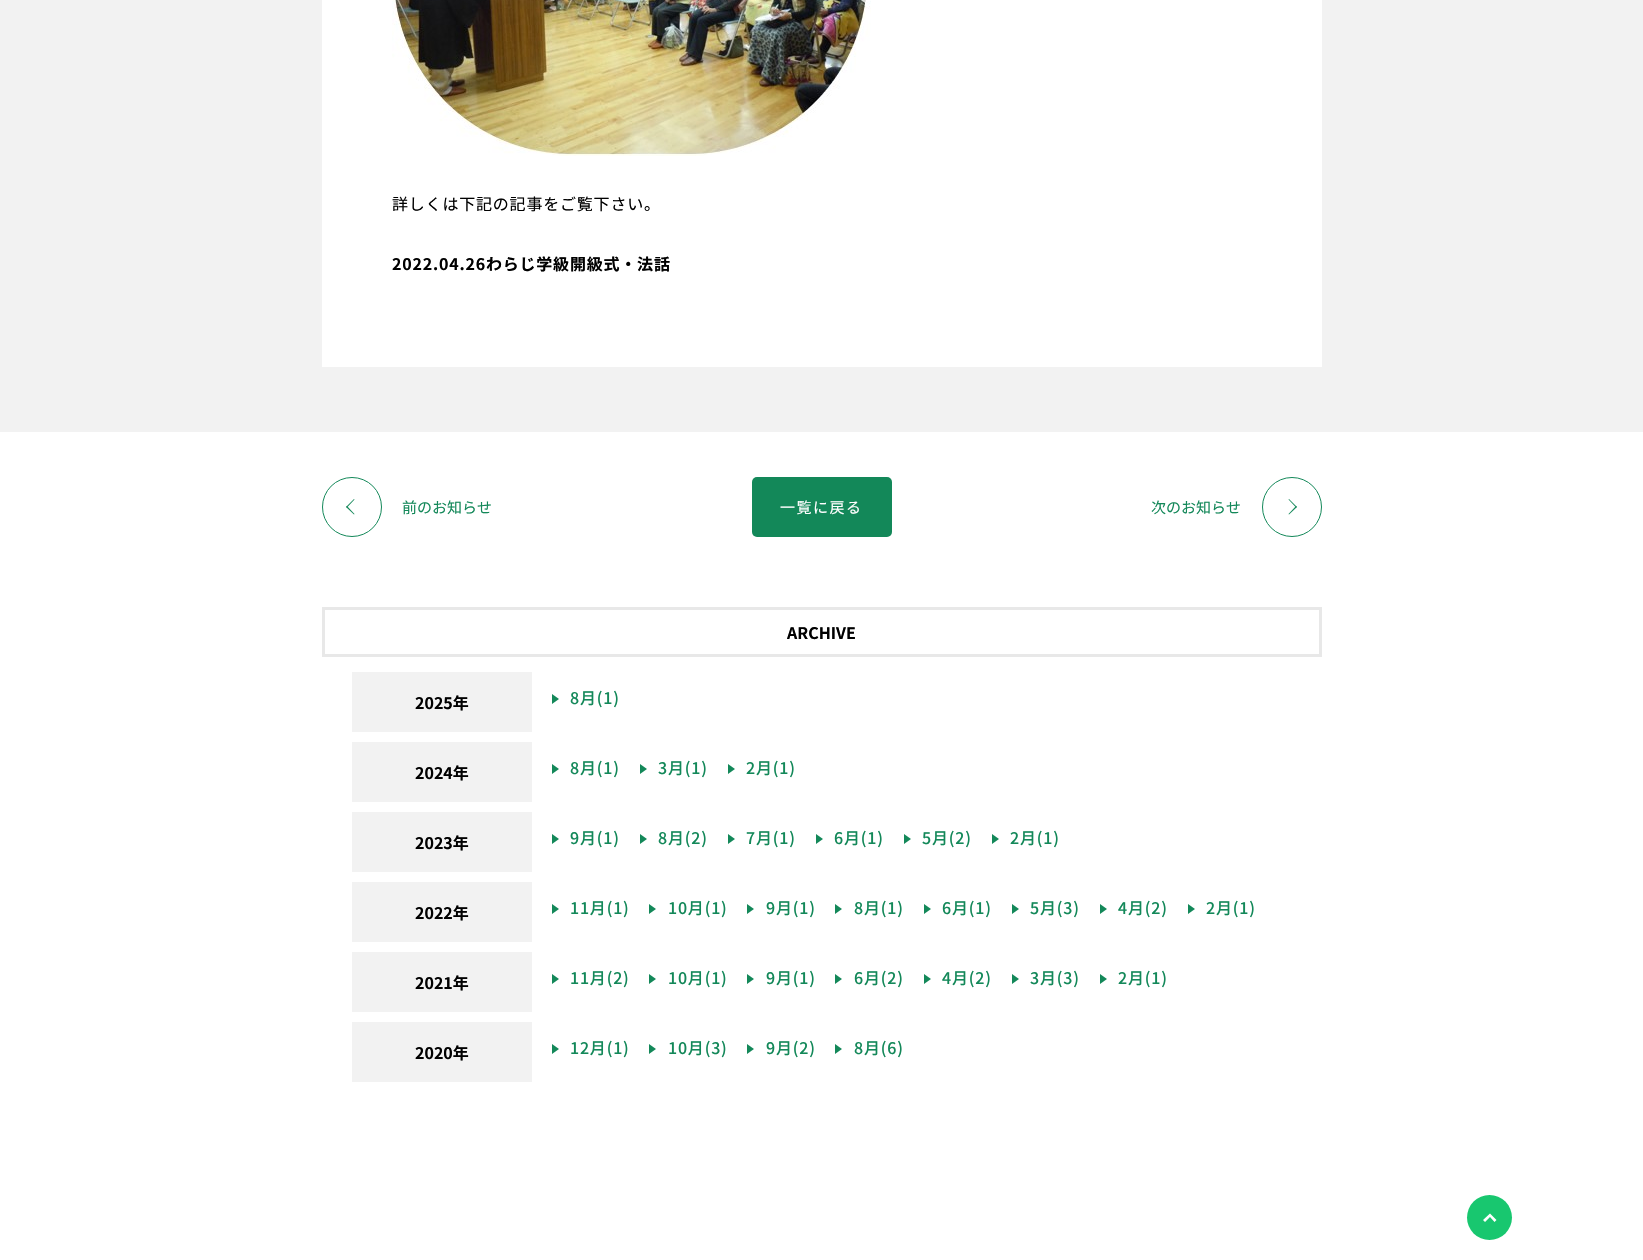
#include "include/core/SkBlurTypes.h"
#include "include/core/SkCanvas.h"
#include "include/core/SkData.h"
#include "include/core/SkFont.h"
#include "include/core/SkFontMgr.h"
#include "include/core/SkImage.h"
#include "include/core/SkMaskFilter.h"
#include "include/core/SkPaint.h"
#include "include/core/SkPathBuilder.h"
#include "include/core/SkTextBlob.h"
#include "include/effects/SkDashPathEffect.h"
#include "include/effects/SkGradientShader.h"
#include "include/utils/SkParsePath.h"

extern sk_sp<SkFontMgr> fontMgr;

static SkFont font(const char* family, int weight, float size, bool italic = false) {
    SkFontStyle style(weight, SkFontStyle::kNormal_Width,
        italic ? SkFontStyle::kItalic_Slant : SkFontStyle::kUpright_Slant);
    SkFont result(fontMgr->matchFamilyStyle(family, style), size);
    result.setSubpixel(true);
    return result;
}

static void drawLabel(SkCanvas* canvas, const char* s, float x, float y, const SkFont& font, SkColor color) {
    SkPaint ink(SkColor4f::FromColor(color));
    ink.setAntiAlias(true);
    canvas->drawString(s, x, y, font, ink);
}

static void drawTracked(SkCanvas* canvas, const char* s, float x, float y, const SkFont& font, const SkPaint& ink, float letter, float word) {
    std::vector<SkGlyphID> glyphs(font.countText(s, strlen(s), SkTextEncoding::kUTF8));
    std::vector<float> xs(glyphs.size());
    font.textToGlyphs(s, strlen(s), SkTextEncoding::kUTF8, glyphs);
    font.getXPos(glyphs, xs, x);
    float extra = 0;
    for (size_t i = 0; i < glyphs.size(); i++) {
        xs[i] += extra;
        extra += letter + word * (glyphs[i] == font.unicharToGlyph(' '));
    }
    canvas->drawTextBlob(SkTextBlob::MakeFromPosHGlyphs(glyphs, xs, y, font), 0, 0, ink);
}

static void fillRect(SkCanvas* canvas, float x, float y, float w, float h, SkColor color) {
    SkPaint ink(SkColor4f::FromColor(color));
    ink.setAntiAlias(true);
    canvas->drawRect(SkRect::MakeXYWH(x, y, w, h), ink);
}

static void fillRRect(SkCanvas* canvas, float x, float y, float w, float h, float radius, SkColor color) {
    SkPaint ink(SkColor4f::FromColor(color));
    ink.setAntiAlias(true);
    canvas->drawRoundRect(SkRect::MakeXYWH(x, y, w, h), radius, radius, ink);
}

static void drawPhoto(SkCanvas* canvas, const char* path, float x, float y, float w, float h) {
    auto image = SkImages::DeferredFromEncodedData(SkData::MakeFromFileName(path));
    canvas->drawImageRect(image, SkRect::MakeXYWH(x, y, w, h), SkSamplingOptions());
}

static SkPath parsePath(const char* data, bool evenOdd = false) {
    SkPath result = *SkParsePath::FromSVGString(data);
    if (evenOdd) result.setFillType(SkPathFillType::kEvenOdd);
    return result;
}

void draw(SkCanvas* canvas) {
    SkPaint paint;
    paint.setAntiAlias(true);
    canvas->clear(0xFFFFFFFF);
    fillRect(canvas, 0, 0, 1643, 432, 0xFFF2F2F2);
    fillRect(canvas, 322, 0, 1000, 367, 0xFFFFFFFF);
    drawPhoto(canvas, "assets/img1.png", 392, 0, 479, 156);
    SkFont font1 = font("Noto Sans CJK JP", 400, 16);
    paint.setColor(0xFF000000);
    drawTracked(canvas, "詳しくは下記の記事をご覧下さい。", 392, 210, font1, paint, 0.8f, 0);
    SkFont font2 = font("Noto Sans CJK JP", 700, 16);
    drawTracked(canvas, "2022.04.26わらじ学級開級式・法話", 392, 270, font2, paint, 0.8f, 0);
    paint.setStroke(true);
    paint.setStrokeWidth(1);
    paint.setColor(0xFF138859);
    canvas->drawCircle(352, 507, 29.5f, paint);
    paint.setStroke(false);
    canvas->drawPath(parsePath("M354 514.5L346 507L347 506L354.5 514Z"), paint);
    canvas->drawPath(parsePath("M347 507.5L346 507L354 499L354.5 499.5Z"), paint);
    SkFont font3 = font("Noto Sans CJK JP", 400, 15);
    drawLabel(canvas, "前のお知らせ", 402, 513, font3, 0xFF138859);
    fillRRect(canvas, 752, 477, 140, 60, 5, 0xFF138859);
    paint.setColor(0xFFFFFFFF);
    drawTracked(canvas, "一覧に戻る", 780, 513, font3, paint, 1.5f, 0);
    drawLabel(canvas, "次のお知らせ", 1151, 513, font3, 0xFF138859);
    paint.setStroke(true);
    paint.setColor(0xFF138859);
    canvas->drawCircle(1292, 507, 29.5f, paint);
    paint.setStroke(false);
    canvas->drawPath(parsePath("M1289 499L1297 507L1296 507.5L1288.5 499.5Z"), paint);
    canvas->drawPath(parsePath("M1296 506L1297 507L1289 514.5L1288.5 514Z"), paint);
    paint.setStroke(true);
    paint.setStrokeWidth(3);
    paint.setColor(0xFFE8E8E8);
    canvas->drawRect(SkRect::MakeXYWH(323.5f, 608.5f, 997, 47), paint);
    drawLabel(canvas, "ARCHIVE", 787, 639, font2, 0xFF000000);
    fillRect(canvas, 352, 672, 180, 60, 0xFFF2F2F2);
    drawLabel(canvas, "2025年", 415, 709, font2, 0xFF000000);
    paint.setStroke(false);
    paint.setColor(0xFF138859);
    canvas->drawPath(parsePath("M552 704V694L559 699Z"), paint);
    SkFont font4 = font("Noto Sans CJK JP", 500, 16);
    drawTracked(canvas, "8月(1)", 570, 704, font4, paint, 0.8f, 0);
    fillRect(canvas, 352, 742, 180, 60, 0xFFF2F2F2);
    drawLabel(canvas, "2024年", 415, 779, font2, 0xFF000000);
    canvas->drawPath(parsePath("M552 774V764L559 769Z"), paint);
    drawTracked(canvas, "8月(1)", 570, 774, font4, paint, 0.8f, 0);
    canvas->drawPath(parsePath("M640 774V764L647 769Z"), paint);
    drawTracked(canvas, "3月(1)", 658, 774, font4, paint, 0.8f, 0);
    canvas->drawPath(parsePath("M728 774V764L735 769Z"), paint);
    drawTracked(canvas, "2月(1)", 746, 774, font4, paint, 0.8f, 0);
    fillRect(canvas, 352, 812, 180, 60, 0xFFF2F2F2);
    drawLabel(canvas, "2023年", 415, 849, font2, 0xFF000000);
    canvas->drawPath(parsePath("M552 844V834L559 839Z"), paint);
    drawTracked(canvas, "9月(1)", 570, 844, font4, paint, 0.8f, 0);
    canvas->drawPath(parsePath("M640 844V834L647 839Z"), paint);
    drawTracked(canvas, "8月(2)", 658, 844, font4, paint, 0.8f, 0);
    canvas->drawPath(parsePath("M728 844V834L735 839Z"), paint);
    drawTracked(canvas, "7月(1)", 746, 844, font4, paint, 0.8f, 0);
    canvas->drawPath(parsePath("M816 844V834L823 839Z"), paint);
    drawTracked(canvas, "6月(1)", 834, 844, font4, paint, 0.8f, 0);
    canvas->drawPath(parsePath("M904 844V834L911 839Z"), paint);
    drawTracked(canvas, "5月(2)", 922, 844, font4, paint, 0.8f, 0);
    canvas->drawPath(parsePath("M992 844V834L999 839Z"), paint);
    drawTracked(canvas, "2月(1)", 1010, 844, font4, paint, 0.8f, 0);
    fillRect(canvas, 352, 882, 180, 60, 0xFFF2F2F2);
    drawLabel(canvas, "2022年", 415, 919, font2, 0xFF000000);
    canvas->drawPath(parsePath("M552 914V904L559 909Z"), paint);
    drawTracked(canvas, "11月(1)", 570, 914, font4, paint, 0.8f, 0);
    canvas->drawPath(parsePath("M649 914V904L656 909Z"), paint);
    drawTracked(canvas, "10月(1)", 668, 914, font4, paint, 0.8f, 0);
    canvas->drawPath(parsePath("M747 914V904L754 909Z"), paint);
    drawTracked(canvas, "9月(1)", 766, 914, font4, paint, 0.8f, 0);
    canvas->drawPath(parsePath("M835 914V904L842 909Z"), paint);
    drawTracked(canvas, "8月(1)", 854, 914, font4, paint, 0.8f, 0);
    canvas->drawPath(parsePath("M924 914V904L931 909Z"), paint);
    drawTracked(canvas, "6月(1)", 942, 914, font4, paint, 0.8f, 0);
    canvas->drawPath(parsePath("M1012 914V904L1019 909Z"), paint);
    drawTracked(canvas, "5月(3)", 1030, 914, font4, paint, 0.8f, 0);
    canvas->drawPath(parsePath("M1100 914V904L1107 909Z"), paint);
    drawTracked(canvas, "4月(2)", 1118, 914, font4, paint, 0.8f, 0);
    canvas->drawPath(parsePath("M1188 914V904L1195 909Z"), paint);
    drawTracked(canvas, "2月(1)", 1206, 914, font4, paint, 0.8f, 0);
    fillRect(canvas, 352, 952, 180, 60, 0xFFF2F2F2);
    drawLabel(canvas, "2021年", 415, 989, font2, 0xFF000000);
    canvas->drawPath(parsePath("M552 984V974L559 979Z"), paint);
    drawTracked(canvas, "11月(2)", 570, 984, font4, paint, 0.8f, 0);
    canvas->drawPath(parsePath("M649 984V974L656 979Z"), paint);
    drawTracked(canvas, "10月(1)", 668, 984, font4, paint, 0.8f, 0);
    canvas->drawPath(parsePath("M747 984V974L754 979Z"), paint);
    drawTracked(canvas, "9月(1)", 766, 984, font4, paint, 0.8f, 0);
    canvas->drawPath(parsePath("M835 984V974L842 979Z"), paint);
    drawTracked(canvas, "6月(2)", 854, 984, font4, paint, 0.8f, 0);
    canvas->drawPath(parsePath("M924 984V974L931 979Z"), paint);
    drawTracked(canvas, "4月(2)", 942, 984, font4, paint, 0.8f, 0);
    canvas->drawPath(parsePath("M1012 984V974L1019 979Z"), paint);
    drawTracked(canvas, "3月(3)", 1030, 984, font4, paint, 0.8f, 0);
    canvas->drawPath(parsePath("M1100 984V974L1107 979Z"), paint);
    drawTracked(canvas, "2月(1)", 1118, 984, font4, paint, 0.8f, 0);
    fillRect(canvas, 352, 1022, 180, 60, 0xFFF2F2F2);
    drawLabel(canvas, "2020年", 415, 1059, font2, 0xFF000000);
    canvas->drawPath(parsePath("M552 1054V1044L559 1049Z"), paint);
    drawTracked(canvas, "12月(1)", 570, 1054, font4, paint, 0.8f, 0);
    canvas->drawPath(parsePath("M649 1054V1044L656 1049Z"), paint);
    drawTracked(canvas, "10月(3)", 668, 1054, font4, paint, 0.8f, 0);
    canvas->drawPath(parsePath("M747 1054V1044L754 1049Z"), paint);
    drawTracked(canvas, "9月(2)", 766, 1054, font4, paint, 0.8f, 0);
    canvas->drawPath(parsePath("M835 1054V1044L842 1049Z"), paint);
    drawTracked(canvas, "8月(6)", 854, 1054, font4, paint, 0.8f, 0);
    paint.setColor(0xFF18C76F);
    canvas->drawCircle(1489.5f, 1217.5f, 22.5f, paint);
    paint.setColor(0xFFFFFFFF);
    canvas->drawPath(parsePath("M1485 1222L1490 1217L1494.5 1222L1496.5 1220L1490 1213.5L1483 1220Z"), paint);
}
